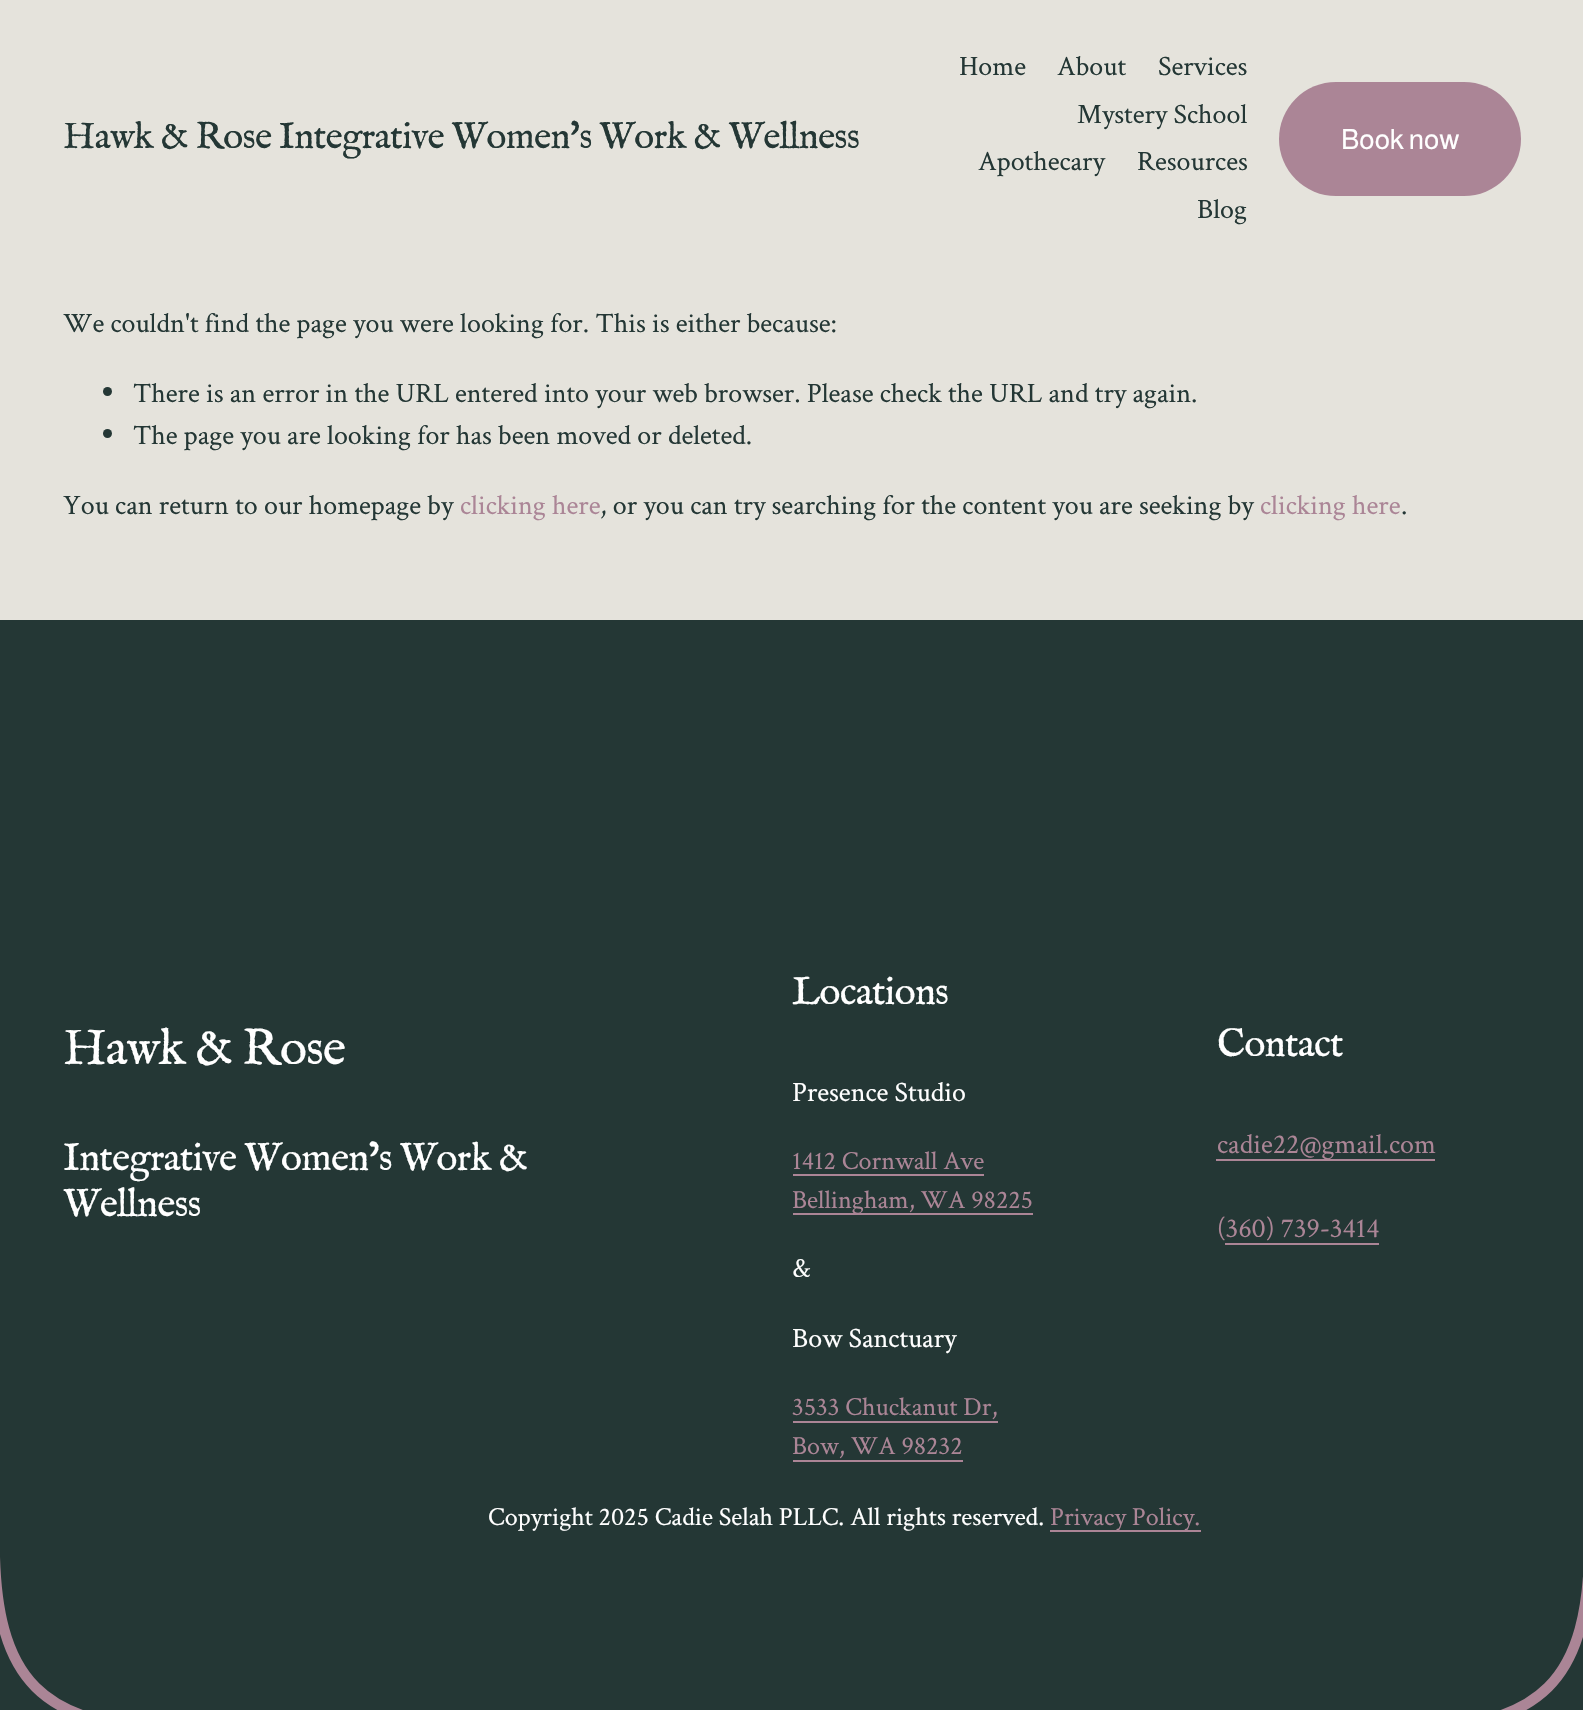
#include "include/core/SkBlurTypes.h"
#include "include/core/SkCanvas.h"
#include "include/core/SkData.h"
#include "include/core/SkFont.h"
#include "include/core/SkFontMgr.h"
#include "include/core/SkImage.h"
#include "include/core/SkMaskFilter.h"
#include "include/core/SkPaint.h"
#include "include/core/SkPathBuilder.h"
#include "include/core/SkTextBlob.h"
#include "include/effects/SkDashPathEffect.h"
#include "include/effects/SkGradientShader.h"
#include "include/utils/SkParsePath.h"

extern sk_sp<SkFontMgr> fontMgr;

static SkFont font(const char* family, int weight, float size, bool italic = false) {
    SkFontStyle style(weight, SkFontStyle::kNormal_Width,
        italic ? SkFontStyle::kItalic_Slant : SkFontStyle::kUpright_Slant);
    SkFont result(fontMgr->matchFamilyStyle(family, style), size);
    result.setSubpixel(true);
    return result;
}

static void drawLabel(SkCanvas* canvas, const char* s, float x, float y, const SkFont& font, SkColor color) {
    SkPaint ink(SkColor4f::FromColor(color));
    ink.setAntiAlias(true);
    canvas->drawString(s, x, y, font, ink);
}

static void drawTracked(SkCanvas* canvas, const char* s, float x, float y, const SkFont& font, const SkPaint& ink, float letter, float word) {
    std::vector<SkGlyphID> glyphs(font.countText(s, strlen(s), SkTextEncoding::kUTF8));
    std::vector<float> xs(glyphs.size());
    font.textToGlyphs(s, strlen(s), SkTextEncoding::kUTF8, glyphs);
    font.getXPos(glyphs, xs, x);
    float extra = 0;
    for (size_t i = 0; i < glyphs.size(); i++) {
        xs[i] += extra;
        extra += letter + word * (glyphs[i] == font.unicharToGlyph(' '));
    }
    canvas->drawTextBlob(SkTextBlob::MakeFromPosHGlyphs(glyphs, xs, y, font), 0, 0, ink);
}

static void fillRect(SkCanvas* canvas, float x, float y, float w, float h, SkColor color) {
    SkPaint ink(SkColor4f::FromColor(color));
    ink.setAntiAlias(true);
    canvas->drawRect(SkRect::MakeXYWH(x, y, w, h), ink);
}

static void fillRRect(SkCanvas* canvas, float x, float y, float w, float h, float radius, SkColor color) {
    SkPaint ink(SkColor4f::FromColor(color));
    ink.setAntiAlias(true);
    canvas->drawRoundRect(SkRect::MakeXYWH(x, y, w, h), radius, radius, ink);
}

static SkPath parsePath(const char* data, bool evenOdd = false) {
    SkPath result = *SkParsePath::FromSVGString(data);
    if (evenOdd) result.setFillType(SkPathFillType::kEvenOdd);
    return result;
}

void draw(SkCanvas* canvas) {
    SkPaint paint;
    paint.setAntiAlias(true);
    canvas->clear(0xFFE5E3DC);
    SkFont font1 = font("IM FELL English", 400, 37.5f);
    paint.setColor(0xFF243735);
    drawTracked(canvas, "Hawk & Rose Integrative Women's Work & Wellness", 63, 148, font1, paint, -0.75f, 0);
    SkFont font2 = font("Crimson Text", 400, 28);
    drawLabel(canvas, "Home", 959, 75, font2, 0xFF243735);
    drawLabel(canvas, "About", 1057, 75, font2, 0xFF243735);
    drawLabel(canvas, "Services", 1158, 75, font2, 0xFF243735);
    drawLabel(canvas, "Mystery School", 1077, 123, font2, 0xFF243735);
    drawLabel(canvas, "Apothecary", 978, 170, font2, 0xFF243735);
    drawLabel(canvas, "Resources", 1137, 170, font2, 0xFF243735);
    drawLabel(canvas, "Blog", 1197, 218, font2, 0xFF243735);
    fillRRect(canvas, 1279, 82, 242, 114, 57, 0xFFAB8596);
    SkFont font3 = font("Almarai", 400, 28);
    drawLabel(canvas, "Book now", 1341, 149, font3, 0xFFFFFFFF);
    drawLabel(canvas, "We couldn't find the page you were looking for. This is either because:", 63, 332, font2, 0xFF243735);
    canvas->drawCircle(107.5f, 391.5f, 4.5f, paint);
    drawLabel(canvas, "There is an error in the URL entered into your web browser. Please check the URL and try again.", 133, 402, font2, 0xFF243735);
    canvas->drawCircle(107.5f, 433.5f, 4.5f, paint);
    drawLabel(canvas, "The page you are looking for has been moved or deleted.", 133, 444, font2, 0xFF243735);
    drawLabel(canvas, "You can return to our homepage by", 63, 514, font2, 0xFF243735);
    drawLabel(canvas, "clicking here", 460, 514, font2, 0xFFAB8596);
    drawLabel(canvas, ", or you can try searching for the content you are seeking by", 600, 514, font2, 0xFF243735);
    drawLabel(canvas, "clicking here", 1260, 514, font2, 0xFFAB8596);
    drawLabel(canvas, ".", 1401, 514, font2, 0xFF243735);
    fillRect(canvas, 0, 620, 1583, 1090, 0xFF243735);
    SkFont font4 = font("IM FELL English", 400, 50.75f);
    paint.setColor(0xFFFFFFFF);
    drawTracked(canvas, "Hawk & Rose", 63, 1064, font4, paint, -1, 0);
    SkFont font5 = font("IM FELL English", 400, 39.4f);
    drawTracked(canvas, "Integrative Women’s Work &", 63, 1170, font5, paint, -0.8f, 0);
    drawTracked(canvas, "Wellness", 63, 1216, font5, paint, -0.8f, 0);
    drawTracked(canvas, "Locations", 792, 1004, font5, paint, -0.8f, 0);
    drawLabel(canvas, "Presence Studio", 792, 1101, font2, 0xFFFFFFFF);
    SkFont font6 = font("Crimson Text", 400, 26.1f);
    drawLabel(canvas, "1412 Cornwall Ave", 792, 1169, font6, 0xFFAB8596);
    fillRect(canvas, 793, 1174, 191, 2, 0xFFAB8596);
    fillRect(canvas, 793, 1213, 240, 2, 0xFFAB8596);
    drawLabel(canvas, "Bellingham, WA 98225", 792, 1208, font6, 0xFFAB8596);
    drawLabel(canvas, "&", 792, 1277, font2, 0xFFFFFFFF);
    drawLabel(canvas, "Bow Sanctuary", 792, 1347, font2, 0xFFFFFFFF);
    drawLabel(canvas, "3533 Chuckanut Dr,", 792, 1415, font6, 0xFFAB8596);
    fillRect(canvas, 793, 1421, 205, 2, 0xFFAB8596);
    drawLabel(canvas, "Bow, WA 98232", 792, 1454, font6, 0xFFAB8596);
    fillRect(canvas, 793, 1460, 170, 2, 0xFFAB8596);
    drawTracked(canvas, "Contact", 1217, 1056, font5, paint, -0.8f, 0);
    fillRect(canvas, 1216, 1159, 219, 2, 0xFFAB8596);
    drawLabel(canvas, "cadie22@gmail.com", 1217, 1153, font2, 0xFFAB8596);
    drawLabel(canvas, "(360) 739-3414", 1217, 1237, font2, 0xFFAB8596);
    fillRect(canvas, 1225, 1243, 154, 2, 0xFFAB8596);
    drawLabel(canvas, "Copyright 2025 Cadie Selah PLLC. All rights reserved.", 488, 1525, font6, 0xFFFFFFFF);
    fillRect(canvas, 1050, 1530, 151, 2, 0xFFAB8596);
    drawLabel(canvas, "Privacy Policy.", 1050, 1525, font6, 0xFFAB8596);
    paint.setStroke(true);
    paint.setStrokeWidth(10.5f);
    paint.setStrokeCap(SkPaint::kSquare_Cap);
    paint.setColor(0xFFAB8596);
    canvas->drawPath(parsePath("M-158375 1174V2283M-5.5 1540C-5.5 1681.5 41.5 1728.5 183 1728.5H1400.5C1542 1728.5 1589.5 1681.5 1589.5 1540"), paint);
}
